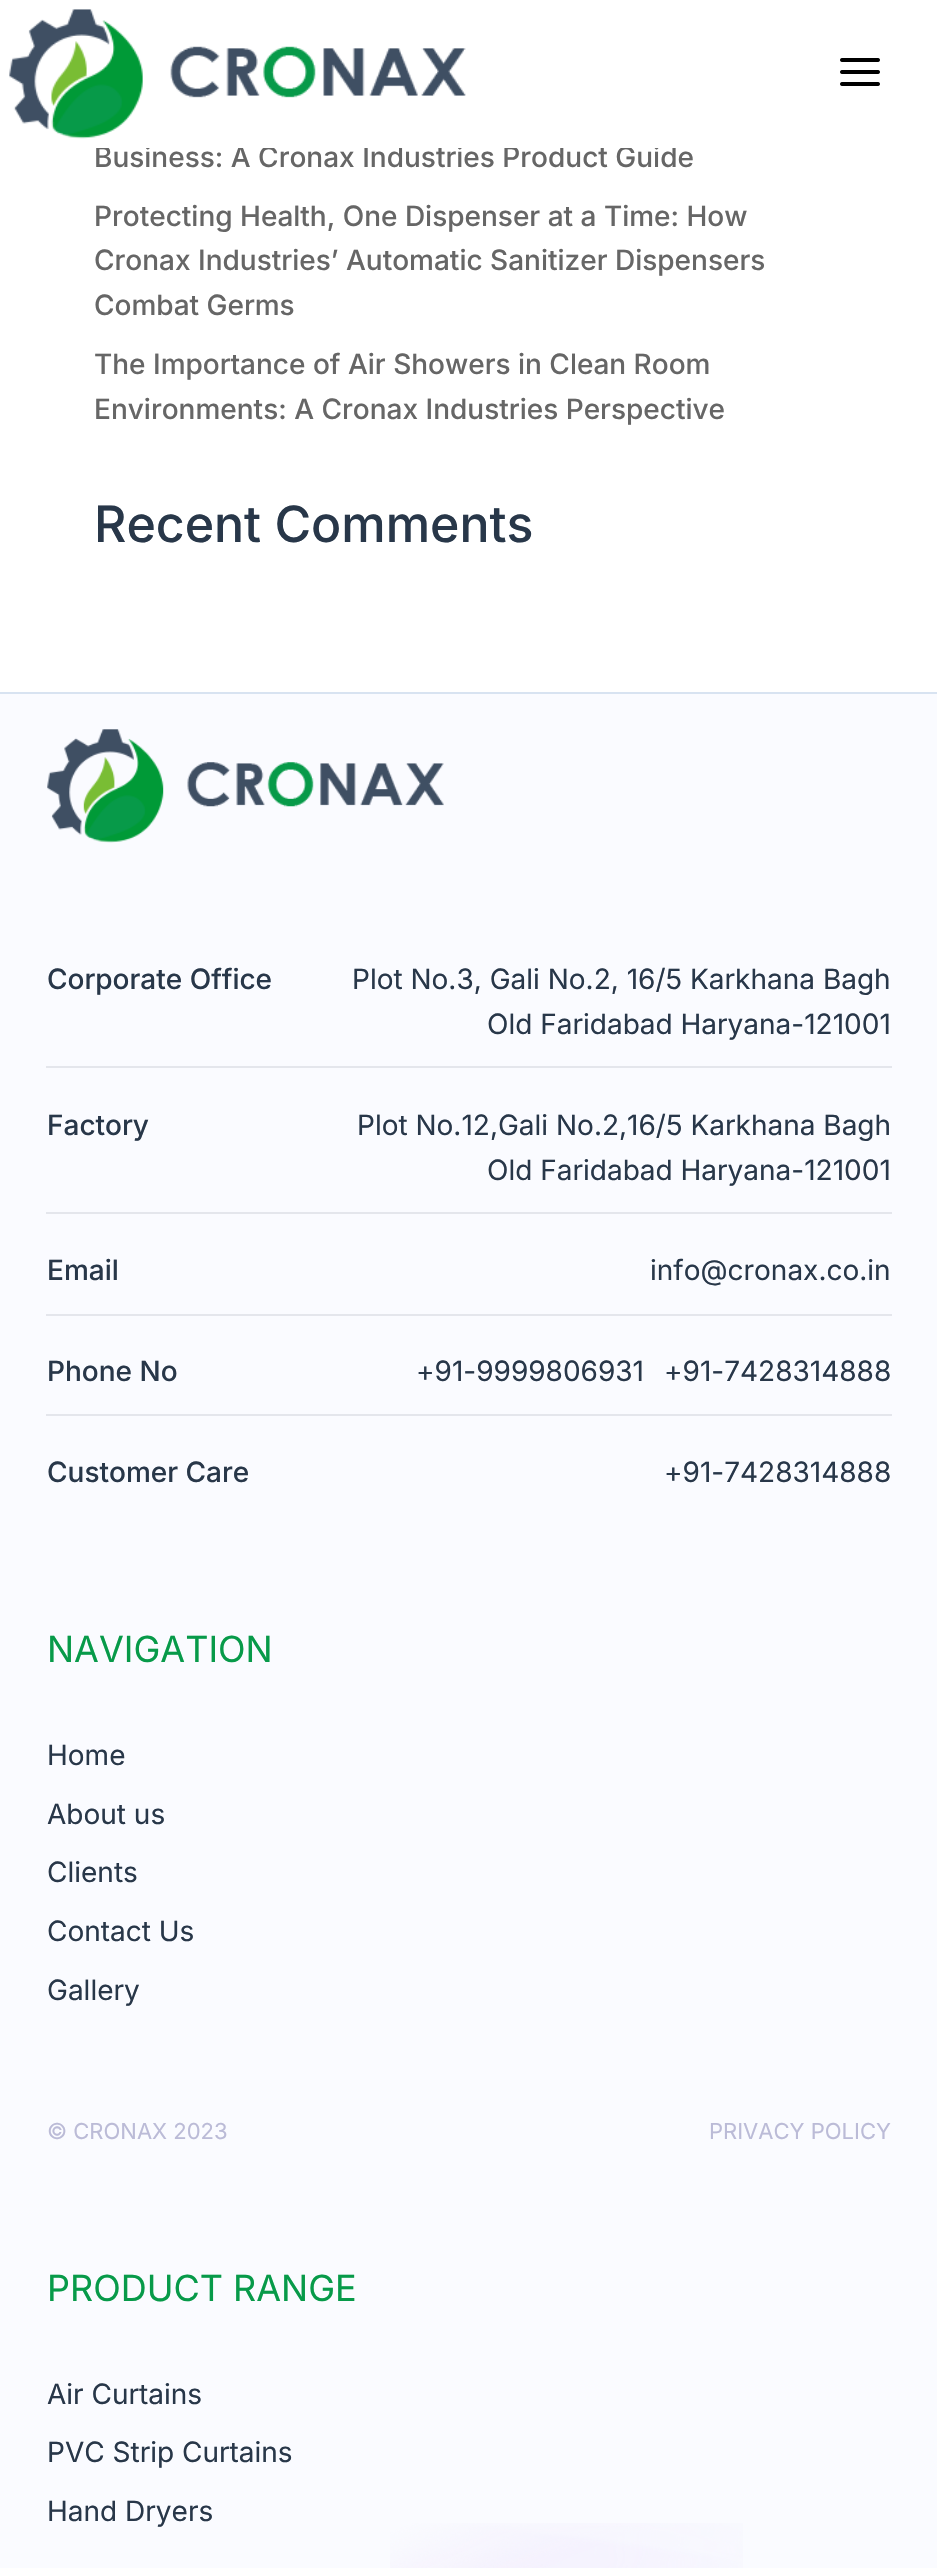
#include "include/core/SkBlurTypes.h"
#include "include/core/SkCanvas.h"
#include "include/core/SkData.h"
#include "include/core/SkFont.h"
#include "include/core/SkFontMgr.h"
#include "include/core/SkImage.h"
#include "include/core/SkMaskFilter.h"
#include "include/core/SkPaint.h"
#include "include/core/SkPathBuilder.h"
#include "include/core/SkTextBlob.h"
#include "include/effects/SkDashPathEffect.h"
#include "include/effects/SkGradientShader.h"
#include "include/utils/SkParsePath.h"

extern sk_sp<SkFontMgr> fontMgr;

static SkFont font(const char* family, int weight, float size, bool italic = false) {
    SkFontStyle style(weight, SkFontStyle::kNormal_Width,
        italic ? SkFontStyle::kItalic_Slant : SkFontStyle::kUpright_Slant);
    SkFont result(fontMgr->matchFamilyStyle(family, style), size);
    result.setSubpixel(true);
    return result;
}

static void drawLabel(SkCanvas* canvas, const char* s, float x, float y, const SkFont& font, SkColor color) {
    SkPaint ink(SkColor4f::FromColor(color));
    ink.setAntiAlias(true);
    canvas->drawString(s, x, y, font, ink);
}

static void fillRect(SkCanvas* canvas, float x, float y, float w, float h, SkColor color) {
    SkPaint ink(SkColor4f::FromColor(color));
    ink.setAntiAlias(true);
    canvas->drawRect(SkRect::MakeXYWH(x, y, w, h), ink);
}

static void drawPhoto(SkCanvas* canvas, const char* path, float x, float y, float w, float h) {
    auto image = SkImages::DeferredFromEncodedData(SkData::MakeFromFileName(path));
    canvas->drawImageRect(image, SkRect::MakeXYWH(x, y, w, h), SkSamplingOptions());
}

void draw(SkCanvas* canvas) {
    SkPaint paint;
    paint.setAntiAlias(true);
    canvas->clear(0xFFFFFFFF);
    SkFont font1 = font("Inter", 500, 28);
    drawLabel(canvas, "Business: A Cronax Industries Product Guide", 94, 167, font1, 0xFF666666);
    fillRect(canvas, 96, 145, 580, 3, 0xFFFFFFFF);
    drawPhoto(canvas, "assets/img1.png", 9, 9, 457, 130);
    drawPhoto(canvas, "assets/img2.png", 840, 58, 40, 28);
    drawLabel(canvas, "Protecting Health, One Dispenser at a Time: How", 94, 226, font1, 0xFF666666);
    drawLabel(canvas, "Cronax Industries’ Automatic Sanitizer Dispensers", 94, 270, font1, 0xFF666666);
    drawLabel(canvas, "Combat Germs", 94, 315, font1, 0xFF666666);
    drawLabel(canvas, "The Importance of Air Showers in Clean Room", 94, 374, font1, 0xFF666666);
    drawLabel(canvas, "Environments: A Cronax Industries Perspective", 94, 419, font1, 0xFF666666);
    SkFont font2 = font("Inter", 500, 50);
    drawLabel(canvas, "Recent Comments", 94, 542, font2, 0xFF283749);
    fillRect(canvas, 0, 694, 937, 1874, 0xFFFAFBFF);
    drawPhoto(canvas, "assets/img3.png", 390, 2523, 353, 45);
    fillRect(canvas, 0, 692, 937, 2, 0xFFD8E3F1);
    drawPhoto(canvas, "assets/img4.png", 47, 729, 397, 114);
    fillRect(canvas, 46, 1066, 846, 2, 0xFFE4E6EC);
    drawLabel(canvas, "Corporate Office", 47, 989, font1, 0xFF283749);
    SkFont font3 = font("Inter", 400, 28);
    drawLabel(canvas, "Plot No.3, Gali No.2, 16/5 Karkhana Bagh", 352, 989, font3, 0xFF283749);
    drawLabel(canvas, "Old Faridabad Haryana-121001", 487, 1034, font3, 0xFF283749);
    fillRect(canvas, 46, 1212, 846, 2, 0xFFE4E6EC);
    drawLabel(canvas, "Factory", 47, 1135, font1, 0xFF283749);
    drawLabel(canvas, "Plot No.12,Gali No.2,16/5 Karkhana Bagh", 357, 1135, font3, 0xFF283749);
    drawLabel(canvas, "Old Faridabad Haryana-121001", 487, 1180, font3, 0xFF283749);
    fillRect(canvas, 46, 1314, 846, 2, 0xFFE4E6EC);
    drawLabel(canvas, "Email", 47, 1280, font1, 0xFF283749);
    drawLabel(canvas, "info@cronax.co.in", 650, 1280, font3, 0xFF283749);
    fillRect(canvas, 46, 1414, 846, 2, 0xFFE4E6EC);
    drawLabel(canvas, "Phone No", 47, 1381, font1, 0xFF283749);
    drawLabel(canvas, "+91-9999806931", 416, 1381, font3, 0xFF283749);
    drawLabel(canvas, "+91-7428314888", 664, 1381, font3, 0xFF283749);
    drawLabel(canvas, "Customer Care", 47, 1482, font1, 0xFF283749);
    drawLabel(canvas, "+91-7428314888", 664, 1482, font3, 0xFF283749);
    SkFont font4 = font("Inter", 400, 36);
    drawLabel(canvas, "NAVIGATION", 47, 1662, font4, 0xFF079A49);
    drawLabel(canvas, "Home", 47, 1765, font3, 0xFF283749);
    drawLabel(canvas, "About us", 47, 1824, font3, 0xFF283749);
    drawLabel(canvas, "Clients", 47, 1882, font3, 0xFF283749);
    drawLabel(canvas, "Contact Us", 47, 1941, font3, 0xFF283749);
    drawLabel(canvas, "Gallery", 47, 2000, font3, 0xFF283749);
    SkFont font5 = font("Inter", 400, 22);
    drawLabel(canvas, "© CRONAX 2023", 47, 2139, font5, 0xFFBBBBD7);
    drawLabel(canvas, "PRIVACY POLICY", 709, 2139, font5, 0xFFBBBBD7);
    drawLabel(canvas, "PRODUCT RANGE", 47, 2301, font4, 0xFF079A49);
    drawLabel(canvas, "Air Curtains", 47, 2404, font3, 0xFF283749);
    drawLabel(canvas, "PVC Strip Curtains", 47, 2462, font3, 0xFF283749);
    drawLabel(canvas, "Hand Dryers", 47, 2521, font3, 0xFF283749);
}
